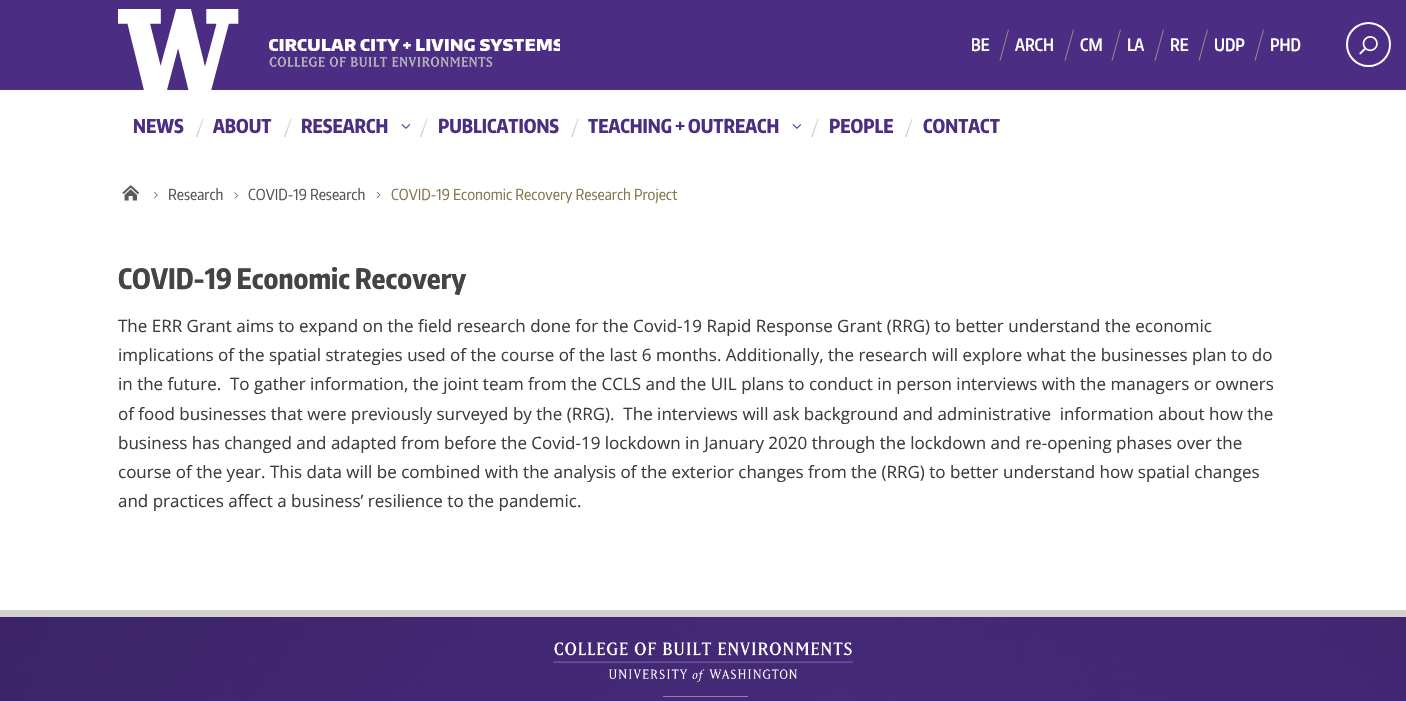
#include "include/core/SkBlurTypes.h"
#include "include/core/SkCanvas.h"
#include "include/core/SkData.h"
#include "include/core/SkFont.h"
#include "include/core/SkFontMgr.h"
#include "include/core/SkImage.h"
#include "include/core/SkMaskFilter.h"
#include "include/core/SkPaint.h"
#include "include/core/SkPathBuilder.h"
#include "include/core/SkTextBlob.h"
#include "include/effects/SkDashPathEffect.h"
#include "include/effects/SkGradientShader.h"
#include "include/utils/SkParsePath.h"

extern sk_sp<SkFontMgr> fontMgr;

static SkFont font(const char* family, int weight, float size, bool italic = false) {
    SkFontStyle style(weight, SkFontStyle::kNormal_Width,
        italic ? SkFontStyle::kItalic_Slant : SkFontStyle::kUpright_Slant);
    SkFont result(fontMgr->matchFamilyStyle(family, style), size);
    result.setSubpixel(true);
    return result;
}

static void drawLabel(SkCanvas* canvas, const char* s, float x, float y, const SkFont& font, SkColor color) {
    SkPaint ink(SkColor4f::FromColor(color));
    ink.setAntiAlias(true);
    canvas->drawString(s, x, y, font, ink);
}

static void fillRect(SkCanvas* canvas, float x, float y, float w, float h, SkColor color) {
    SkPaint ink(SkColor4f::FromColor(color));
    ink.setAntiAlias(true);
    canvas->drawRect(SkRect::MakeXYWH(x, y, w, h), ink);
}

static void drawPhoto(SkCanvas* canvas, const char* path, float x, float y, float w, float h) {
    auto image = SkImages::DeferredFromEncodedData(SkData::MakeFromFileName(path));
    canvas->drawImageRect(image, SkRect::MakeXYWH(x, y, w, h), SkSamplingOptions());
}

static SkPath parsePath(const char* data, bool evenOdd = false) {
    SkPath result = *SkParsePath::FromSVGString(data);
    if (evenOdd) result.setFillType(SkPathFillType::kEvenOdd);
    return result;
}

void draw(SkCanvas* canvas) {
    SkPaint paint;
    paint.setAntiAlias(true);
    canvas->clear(0xFFFFFFFF);
    fillRect(canvas, 0, 0, 1406, 90, 0xFF4B2E83);
    drawPhoto(canvas, "assets/img1.png", 118, 9, 121, 81);
    drawPhoto(canvas, "assets/img2.png", 269, 39, 291, 29);
    SkFont font1 = font("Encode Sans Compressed", 600, 17);
    drawLabel(canvas, "BE", 971, 51, font1, 0xFFFFFFFF);
    drawPhoto(canvas, "assets/img3.png", 999, 29, 10, 32);
    drawLabel(canvas, "ARCH", 1015, 51, font1, 0xFFFFFFFF);
    drawPhoto(canvas, "assets/img3.png", 1064, 29, 10, 32);
    drawLabel(canvas, "CM", 1080, 51, font1, 0xFFFFFFFF);
    drawPhoto(canvas, "assets/img3.png", 1111, 29, 10, 32);
    drawLabel(canvas, "LA", 1127, 51, font1, 0xFFFFFFFF);
    drawPhoto(canvas, "assets/img3.png", 1154, 29, 10, 32);
    drawLabel(canvas, "RE", 1170, 51, font1, 0xFFFFFFFF);
    drawPhoto(canvas, "assets/img3.png", 1198, 29, 10, 32);
    drawLabel(canvas, "UDP", 1214, 51, font1, 0xFFFFFFFF);
    drawPhoto(canvas, "assets/img3.png", 1254, 29, 10, 32);
    drawLabel(canvas, "PHD", 1270, 51, font1, 0xFFFFFFFF);
    paint.setStroke(true);
    paint.setStrokeWidth(2);
    paint.setColor(0xFFFFFFFF);
    canvas->drawCircle(1368.5f, 44.5f, 21.5f, paint);
    drawPhoto(canvas, "assets/img4.png", 1359, 36, 19, 19);
    SkFont font2 = font("Encode Sans Compressed", 800, 19);
    drawLabel(canvas, "NEWS", 133, 133, font2, 0xFF4B2E83);
    paint.setStroke(false);
    paint.setColor(0xFFD1D3D4);
    canvas->drawPath(parsePath("M202.5 119L196 137H197.5L203.5 119Z"), paint);
    drawLabel(canvas, "ABOUT", 213, 133, font2, 0xFF4B2E83);
    canvas->drawPath(parsePath("M290.5 119L284 137H285.5L291.5 119Z"), paint);
    drawLabel(canvas, "RESEARCH", 301, 133, font2, 0xFF4B2E83);
    drawPhoto(canvas, "assets/img5.png", 401, 124, 9, 5);
    canvas->drawPath(parsePath("M426.5 119L420 137H421.5L427.5 119Z"), paint);
    drawLabel(canvas, "PUBLICATIONS", 438, 133, font2, 0xFF4B2E83);
    canvas->drawPath(parsePath("M577.5 119L571 137H572.5L578.5 119Z"), paint);
    drawLabel(canvas, "TEACHING + OUTREACH", 588, 133, font2, 0xFF4B2E83);
    drawPhoto(canvas, "assets/img5.png", 792, 124, 9, 5);
    canvas->drawPath(parsePath("M817.5 119L811 137H812.5L818.5 119Z"), paint);
    drawLabel(canvas, "PEOPLE", 829, 133, font2, 0xFF4B2E83);
    canvas->drawPath(parsePath("M911.5 119L905 137H906.5L912.5 119Z"), paint);
    drawLabel(canvas, "CONTACT", 923, 133, font2, 0xFF4B2E83);
    drawPhoto(canvas, "assets/img6.png", 122, 185, 18, 16);
    drawPhoto(canvas, "assets/img7.png", 153, 192, 5, 7);
    SkFont font3 = font("Encode Sans Condensed", 400, 15);
    drawLabel(canvas, "Research", 168, 200, font3, 0xFF535353);
    drawPhoto(canvas, "assets/img8.png", 234, 192, 4, 7);
    drawLabel(canvas, "COVID-19 Research", 248, 200, font3, 0xFF535353);
    drawPhoto(canvas, "assets/img9.png", 376, 191, 5, 8);
    drawLabel(canvas, "COVID-19 Economic Recovery Research Project", 391, 200, font3, 0xFF85754D);
    SkFont font4 = font("Encode Sans Compressed", 800, 28);
    drawLabel(canvas, "COVID-19 Economic Recovery", 118, 289, font4, 0xFF444444);
    SkFont font5 = font("Open Sans", 400, 17);
    drawLabel(canvas, "The ERR Grant aims to expand on the field research done for the Covid-19 Rapid Response Grant (RRG) to better understand the economic", 118, 332, font5, 0xFF3D3D3D);
    drawLabel(canvas, "implications of the spatial strategies used of the course of the last 6 months. Additionally, the research will explore what the businesses plan to do", 118, 361, font5, 0xFF3D3D3D);
    drawLabel(canvas, "in the future.  To gather information, the joint team from the CCLS and the UIL plans to conduct in person interviews with the managers or owners", 118, 390, font5, 0xFF3D3D3D);
    drawLabel(canvas, "of food businesses that were previously surveyed by the (RRG).  The interviews will ask background and administrative  information about how the", 118, 420, font5, 0xFF3D3D3D);
    drawLabel(canvas, "business has changed and adapted from before the Covid-19 lockdown in January 2020 through the lockdown and re-opening phases over the", 118, 449, font5, 0xFF3D3D3D);
    drawLabel(canvas, "course of the year. This data will be combined with the analysis of the exterior changes from the (RRG) to better understand how spatial changes", 118, 478, font5, 0xFF3D3D3D);
    drawLabel(canvas, "and practices affect a business’ resilience to the pandemic.", 118, 507, font5, 0xFF3D3D3D);
    drawPhoto(canvas, "assets/img10.png", 0, 617, 1406, 84);
    fillRect(canvas, 0, 610, 1406, 7, 0xFFD1D1D1);
    drawPhoto(canvas, "assets/img11.png", 553, 642, 300, 40);
    fillRect(canvas, 663, 696, 85, 1, 0xFF9184AA);
}
